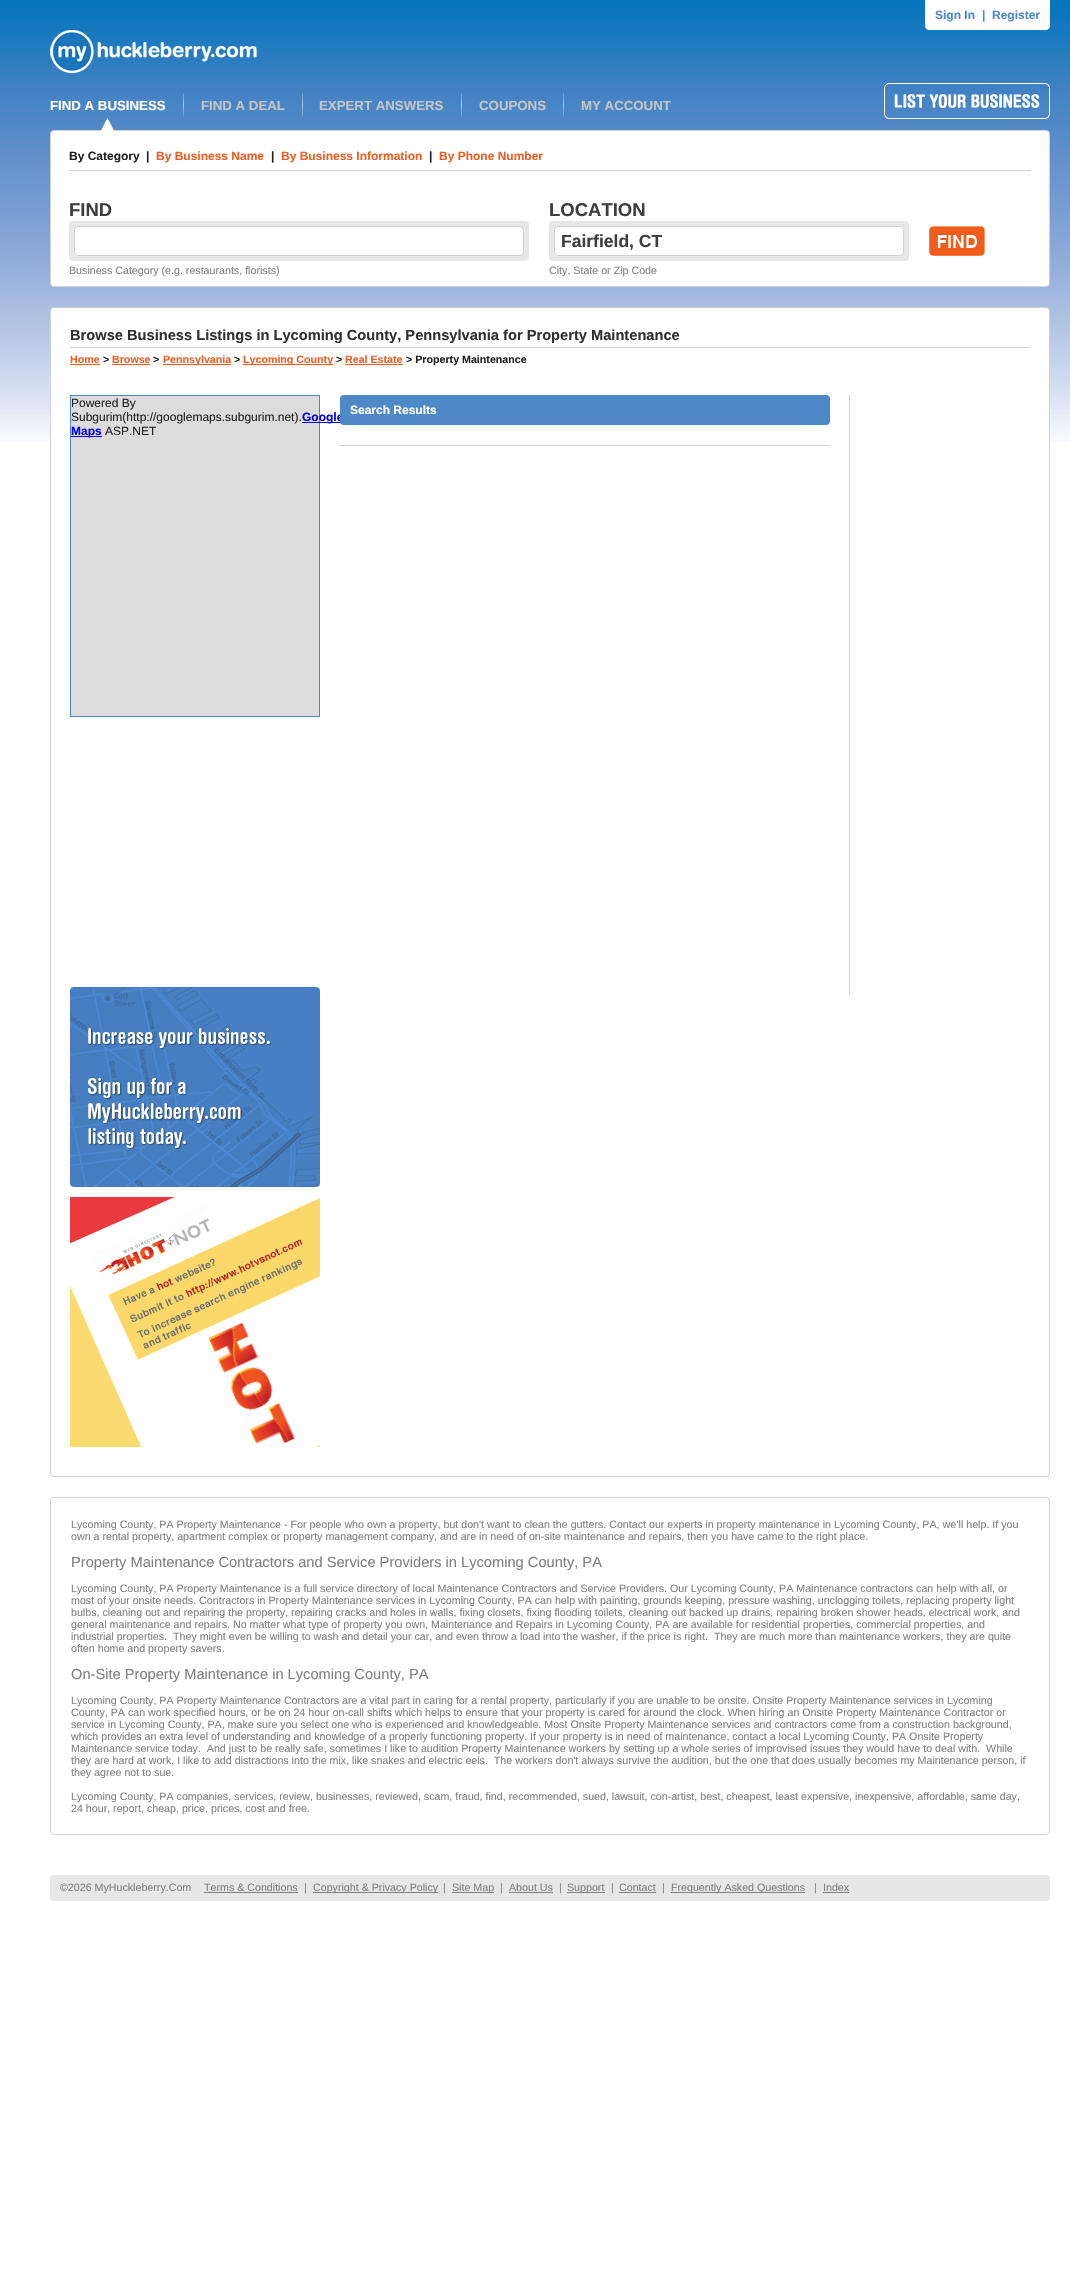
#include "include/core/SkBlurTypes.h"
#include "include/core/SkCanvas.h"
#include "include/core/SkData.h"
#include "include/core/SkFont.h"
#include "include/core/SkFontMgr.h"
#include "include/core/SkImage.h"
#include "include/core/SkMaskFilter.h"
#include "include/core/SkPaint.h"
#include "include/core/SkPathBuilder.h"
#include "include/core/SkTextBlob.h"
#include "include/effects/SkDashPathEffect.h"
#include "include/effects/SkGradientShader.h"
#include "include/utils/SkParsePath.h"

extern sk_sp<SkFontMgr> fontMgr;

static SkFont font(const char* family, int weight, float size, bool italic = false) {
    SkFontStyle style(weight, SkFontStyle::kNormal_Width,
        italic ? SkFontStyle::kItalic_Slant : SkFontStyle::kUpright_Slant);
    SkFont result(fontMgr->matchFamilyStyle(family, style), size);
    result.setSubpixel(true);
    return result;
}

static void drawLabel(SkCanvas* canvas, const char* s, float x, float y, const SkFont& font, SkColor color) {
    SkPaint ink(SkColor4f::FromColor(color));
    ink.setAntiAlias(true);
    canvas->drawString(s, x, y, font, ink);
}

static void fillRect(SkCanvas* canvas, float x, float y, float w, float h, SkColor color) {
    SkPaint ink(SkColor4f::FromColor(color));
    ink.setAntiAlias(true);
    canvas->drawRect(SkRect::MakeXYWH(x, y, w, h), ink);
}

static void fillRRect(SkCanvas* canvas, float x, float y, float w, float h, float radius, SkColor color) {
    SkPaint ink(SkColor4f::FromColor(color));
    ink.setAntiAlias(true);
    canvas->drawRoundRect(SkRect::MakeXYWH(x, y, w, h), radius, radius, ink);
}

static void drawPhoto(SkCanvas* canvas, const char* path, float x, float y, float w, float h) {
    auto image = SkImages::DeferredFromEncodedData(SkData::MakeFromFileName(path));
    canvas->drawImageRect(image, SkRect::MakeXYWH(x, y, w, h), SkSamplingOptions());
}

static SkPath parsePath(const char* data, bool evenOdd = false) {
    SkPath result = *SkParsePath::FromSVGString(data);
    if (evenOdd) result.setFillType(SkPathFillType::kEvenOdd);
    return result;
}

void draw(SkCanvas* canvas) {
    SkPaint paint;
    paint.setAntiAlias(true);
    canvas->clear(0xFFFFFFFF);
    drawPhoto(canvas, "assets/img1.png", 0, 0, 1070, 442);
    paint.setColor(0xFFFFFFFF);
    canvas->drawPath(parsePath("M925 0H1050V26C1050 28 1048 30 1046 30H929C927 30 925 28 925 26Z"), paint);
    SkFont font1 = font("Liberation Sans", 700, 12);
    drawLabel(canvas, "Sign In", 935, 19, font1, 0xFF4E88C7);
    drawLabel(canvas, "|", 982, 19, font1, 0xFF4E88C7);
    drawLabel(canvas, "Register", 992, 19, font1, 0xFF4E88C7);
    drawPhoto(canvas, "assets/img2.png", 50, 30, 207, 43);
    SkFont font2 = font("Liberation Sans", 700, 13.25f);
    drawLabel(canvas, "FIND A BUSINESS", 50, 110, font2, 0xFFFFFFFF);
    drawPhoto(canvas, "assets/img3.png", 183, 93, 1, 24);
    drawLabel(canvas, "FIND A DEAL", 201, 110, font2, 0xFFC5C5C5);
    drawPhoto(canvas, "assets/img3.png", 302, 93, 1, 24);
    drawLabel(canvas, "EXPERT ANSWERS", 319, 110, font2, 0xFFC5C5C5);
    drawPhoto(canvas, "assets/img3.png", 461, 93, 1, 24);
    drawLabel(canvas, "COUPONS", 479, 110, font2, 0xFFC5C5C5);
    drawPhoto(canvas, "assets/img3.png", 563, 93, 1, 24);
    drawLabel(canvas, "MY ACCOUNT", 581, 110, font2, 0xFFC5C5C5);
    drawPhoto(canvas, "assets/img4.png", 884, 83, 166, 36);
    canvas->drawRoundRect(SkRect::MakeXYWH(50.5f, 130.5f, 999, 156), 3.5f, 3.5f, paint);
    paint.setStroke(true);
    paint.setStrokeWidth(1);
    paint.setColor(0xFFD1D1D1);
    canvas->drawRoundRect(SkRect::MakeXYWH(50.5f, 130.5f, 999, 156), 3.5f, 3.5f, paint);
    drawPhoto(canvas, "assets/img5.png", 101, 118, 13, 13);
    fillRect(canvas, 69, 170, 962, 1, 0xFFD1D1D1);
    drawLabel(canvas, "By Category", 69, 160, font1, 0xFF212121);
    drawLabel(canvas, "|", 146, 160, font1, 0xFF212121);
    drawLabel(canvas, "By Business Name", 156, 160, font1, 0xFFEF5D21);
    drawLabel(canvas, "|", 271, 160, font1, 0xFF212121);
    drawLabel(canvas, "By Business Information", 281, 160, font1, 0xFFEF5D21);
    drawLabel(canvas, "|", 429, 160, font1, 0xFF212121);
    drawLabel(canvas, "By Phone Number", 439, 160, font1, 0xFFEF5D21);
    SkFont font3 = font("Liberation Sans", 700, 18.5f);
    drawLabel(canvas, "FIND", 69, 216, font3, 0xFF3E3E3E);
    drawLabel(canvas, "LOCATION", 549, 216, font3, 0xFF3E3E3E);
    fillRRect(canvas, 69, 221, 460, 40, 4, 0xFFE7E7E7);
    paint.setStroke(false);
    paint.setColor(0xFFFFFFFF);
    canvas->drawRoundRect(SkRect::MakeXYWH(74.5f, 226.5f, 449, 29), 3.5f, 3.5f, paint);
    paint.setStroke(true);
    paint.setColor(0xFFD1D1D1);
    canvas->drawRoundRect(SkRect::MakeXYWH(74.5f, 226.5f, 449, 29), 3.5f, 3.5f, paint);
    fillRRect(canvas, 549, 221, 360, 40, 4, 0xFFE7E7E7);
    paint.setStroke(false);
    paint.setColor(0xFFFFFFFF);
    canvas->drawRoundRect(SkRect::MakeXYWH(554.5f, 226.5f, 349, 29), 3.5f, 3.5f, paint);
    paint.setStroke(true);
    paint.setColor(0xFFD1D1D1);
    canvas->drawRoundRect(SkRect::MakeXYWH(554.5f, 226.5f, 349, 29), 3.5f, 3.5f, paint);
    SkFont font4 = font("Liberation Sans", 700, 17.5f);
    drawLabel(canvas, "Fairfield, CT", 561, 247, font4, 0xFF3E3E3E);
    drawPhoto(canvas, "assets/img6.png", 929, 226, 56, 30);
    SkFont font5 = font("Liberation Sans", 400, 10.67f);
    drawLabel(canvas, "Business Category (e.g. restaurants, florists)", 69, 274, font5, 0xFF818181);
    drawLabel(canvas, "City, State or Zip Code", 549, 274, font5, 0xFF818181);
    paint.setStroke(false);
    paint.setColor(0xFFFFFFFF);
    canvas->drawRoundRect(SkRect::MakeXYWH(50.5f, 307.5f, 999, 1169), 3.5f, 3.5f, paint);
    paint.setStroke(true);
    paint.setColor(0xFFD1D1D1);
    canvas->drawRoundRect(SkRect::MakeXYWH(50.5f, 307.5f, 999, 1169), 3.5f, 3.5f, paint);
    fillRect(canvas, 70, 347, 960, 1, 0xFFD1D1D1);
    SkFont font6 = font("Liberation Sans", 700, 14.65f);
    drawLabel(canvas, "Browse Business Listings in Lycoming County, Pennsylvania for Property Maintenance", 70, 340, font6, 0xFF303030);
    SkFont font7 = font("Liberation Sans", 700, 10.67f);
    drawLabel(canvas, "Home", 70, 363, font7, 0xFFEF5D21);
    fillRect(canvas, 70, 364, 30, 1, 0xFFEF5D21);
    drawLabel(canvas, ">", 103, 363, font7, 0xFF212121);
    drawLabel(canvas, "Browse", 112, 363, font7, 0xFFEF5D21);
    fillRect(canvas, 112, 364, 38, 1, 0xFFEF5D21);
    drawLabel(canvas, ">", 153, 363, font7, 0xFF212121);
    fillRect(canvas, 163, 364, 68, 1, 0xFFEF5D21);
    drawLabel(canvas, "Pennsylvania", 163, 363, font7, 0xFFEF5D21);
    drawLabel(canvas, ">", 234, 363, font7, 0xFF212121);
    fillRect(canvas, 243, 364, 90, 1, 0xFFEF5D21);
    drawLabel(canvas, "Lycoming County", 243, 363, font7, 0xFFEF5D21);
    drawLabel(canvas, ">", 336, 363, font7, 0xFF212121);
    drawLabel(canvas, "Real Estate", 345, 363, font7, 0xFFEF5D21);
    fillRect(canvas, 345, 364, 58, 1, 0xFFEF5D21);
    drawLabel(canvas, "> Property Maintenance", 406, 363, font7, 0xFF212121);
    paint.setColor(0xFF4E88C7);
    canvas->drawRect(SkRect::MakeXYWH(70.5f, 395.5f, 249, 321), paint);
    fillRect(canvas, 71, 396, 248, 320, 0xFFDCDCDC);
    SkFont font8 = font("Liberation Sans", 400, 12);
    drawLabel(canvas, "Powered By", 71, 407, font8, 0xFF212121);
    drawLabel(canvas, "Subgurim(http://googlemaps.subgurim.net).", 71, 421, font8, 0xFF212121);
    fillRect(canvas, 302, 422, 41, 1, 0xFF0000EE);
    drawLabel(canvas, "Google", 302, 421, font1, 0xFF0000EE);
    fillRect(canvas, 71, 436, 31, 1, 0xFF0000EE);
    drawLabel(canvas, "Maps", 71, 435, font1, 0xFF0000EE);
    drawLabel(canvas, "ASP.NET", 105, 435, font8, 0xFF212121);
    drawPhoto(canvas, "assets/img7.png", 70, 987, 250, 200);
    drawPhoto(canvas, "assets/img8.png", 70, 1197, 250, 250);
    fillRect(canvas, 849, 395, 1, 600, 0xFFD1D1D1);
    fillRRect(canvas, 340, 395, 490, 30, 4, 0xFF4E88C7);
    drawLabel(canvas, "Search Results", 350, 414, font1, 0xFFFFFFFF);
    fillRect(canvas, 340, 445, 490, 1, 0xFFD1D1D1);
    paint.setColor(0xFFD1D1D1);
    canvas->drawRoundRect(SkRect::MakeXYWH(50.5f, 1497.5f, 999, 337), 3.5f, 3.5f, paint);
    drawLabel(canvas, "Lycoming County, PA Property Maintenance - For people who own a property, but don't want to clean the gutters. Contact our experts in property maintenance in Lycoming County, PA, we’ll help. If you", 71, 1528, font5, 0xFF818181);
    drawLabel(canvas, "own a rental property, apartment complex or property management company, and are in need of on-site maintenance and repairs, then you have came to the right place.", 71, 1540, font5, 0xFF818181);
    SkFont font9 = font("Liberation Sans", 400, 14.65f);
    drawLabel(canvas, "Property Maintenance Contractors and Service Providers in Lycoming County, PA", 71, 1567, font9, 0xFF818181);
    drawLabel(canvas, "Lycoming County, PA Property Maintenance is a full service directory of local Maintenance Contractors and Service Providers. Our Lycoming County, PA Maintenance contractors can help with all, or", 71, 1592, font5, 0xFF818181);
    drawLabel(canvas, "most of your onsite needs. Contractors in Property Maintenance services in Lycoming County, PA can help with painting, grounds keeping, pressure washing, unclogging toilets, replacing property light", 71, 1604, font5, 0xFF818181);
    drawLabel(canvas, "bulbs, cleaning out and repairing the property, repairing cracks and holes in walls, fixing closets, fixing flooding toilets, cleaning out backed up drains, repairing broken shower heads, electrical work, and", 71, 1616, font5, 0xFF818181);
    drawLabel(canvas, "general maintenance and repairs. No matter what type of property you own, Maintenance and Repairs in Lycoming County, PA are available for residential properties, commercial properties, and", 71, 1628, font5, 0xFF818181);
    drawLabel(canvas, "industrial properties.  They might even be willing to wash and detail your car, and even throw a load into the washer, if the price is right.  They are much more than maintenance workers, they are quite", 71, 1640, font5, 0xFF818181);
    drawLabel(canvas, "often home and property savers.", 71, 1652, font5, 0xFF818181);
    drawLabel(canvas, "On-Site Property Maintenance in Lycoming County, PA", 71, 1679, font9, 0xFF818181);
    drawLabel(canvas, "Lycoming County, PA Property Maintenance Contractors are a vital part in caring for a rental property, particularly if you are unable to be onsite. Onsite Property Maintenance services in Lycoming", 71, 1704, font5, 0xFF818181);
    drawLabel(canvas, "County, PA can work specified hours, or be on 24 hour on-call shifts which helps to ensure that your property is cared for around the clock. When hiring an Onsite Property Maintenance Contractor or", 71, 1716, font5, 0xFF818181);
    drawLabel(canvas, "service in Lycoming County, PA, make sure you select one who is experienced and knowledgeable. Most Onsite Property Maintenance services and contractors come from a construction background,", 71, 1728, font5, 0xFF818181);
    drawLabel(canvas, "which provides an extra level of understanding and knowledge of a properly functioning property. If your property is in need of maintenance, contact a local Lycoming County, PA Onsite Property", 71, 1740, font5, 0xFF818181);
    drawLabel(canvas, "Maintenance service today.  And just to be really safe, sometimes I like to audition Property Maintenance workers by setting up a whole series of improvised issues they would have to deal with.  While", 71, 1752, font5, 0xFF818181);
    drawLabel(canvas, "they are hard at work, I like to add distractions into the mix, like snakes and electric eels.  The workers don't always survive the audition, but the one that does usually becomes my Maintenance person, if", 71, 1764, font5, 0xFF818181);
    drawLabel(canvas, "they agree not to sue.", 71, 1776, font5, 0xFF818181);
    drawLabel(canvas, "Lycoming County, PA companies, services, review, businesses, reviewed, scam, fraud, find, recommended, sued, lawsuit, con-artist, best, cheapest, least expensive, inexpensive, affordable, same day,", 71, 1800, font5, 0xFF818181);
    drawLabel(canvas, "24 hour, report, cheap, price, prices, cost and free.", 71, 1812, font5, 0xFF818181);
    fillRRect(canvas, 50, 1875, 1000, 26, 4, 0xFFE7E7E7);
    drawLabel(canvas, "©2026 MyHuckleberry.Com", 60, 1891, font5, 0xFF818181);
    drawLabel(canvas, "Terms & Conditions", 204, 1891, font5, 0xFF818181);
    fillRect(canvas, 204, 1892, 94, 1, 0xFF818181);
    drawLabel(canvas, "|", 304, 1891, font5, 0xFF818181);
    fillRect(canvas, 313, 1892, 125, 1, 0xFF818181);
    drawLabel(canvas, "Copyright & Privacy Policy", 313, 1891, font5, 0xFF818181);
    drawLabel(canvas, "|", 443, 1891, font5, 0xFF818181);
    fillRect(canvas, 452, 1892, 42, 1, 0xFF818181);
    drawLabel(canvas, "Site Map", 452, 1891, font5, 0xFF818181);
    drawLabel(canvas, "|", 500, 1891, font5, 0xFF818181);
    drawLabel(canvas, "About Us", 509, 1891, font5, 0xFF818181);
    fillRect(canvas, 509, 1892, 44, 1, 0xFF818181);
    drawLabel(canvas, "|", 559, 1891, font5, 0xFF818181);
    fillRect(canvas, 567, 1892, 38, 1, 0xFF818181);
    drawLabel(canvas, "Support", 567, 1891, font5, 0xFF818181);
    drawLabel(canvas, "|", 611, 1891, font5, 0xFF818181);
    drawLabel(canvas, "Contact", 619, 1891, font5, 0xFF818181);
    fillRect(canvas, 619, 1892, 37, 1, 0xFF818181);
    drawLabel(canvas, "|", 662, 1891, font5, 0xFF818181);
    fillRect(canvas, 671, 1892, 134, 1, 0xFF818181);
    drawLabel(canvas, "Frequently Asked Questions", 671, 1891, font5, 0xFF818181);
    drawLabel(canvas, "|", 814, 1891, font5, 0xFF818181);
    drawLabel(canvas, "Index", 823, 1891, font5, 0xFF818181);
    fillRect(canvas, 823, 1892, 26, 1, 0xFF818181);
}
